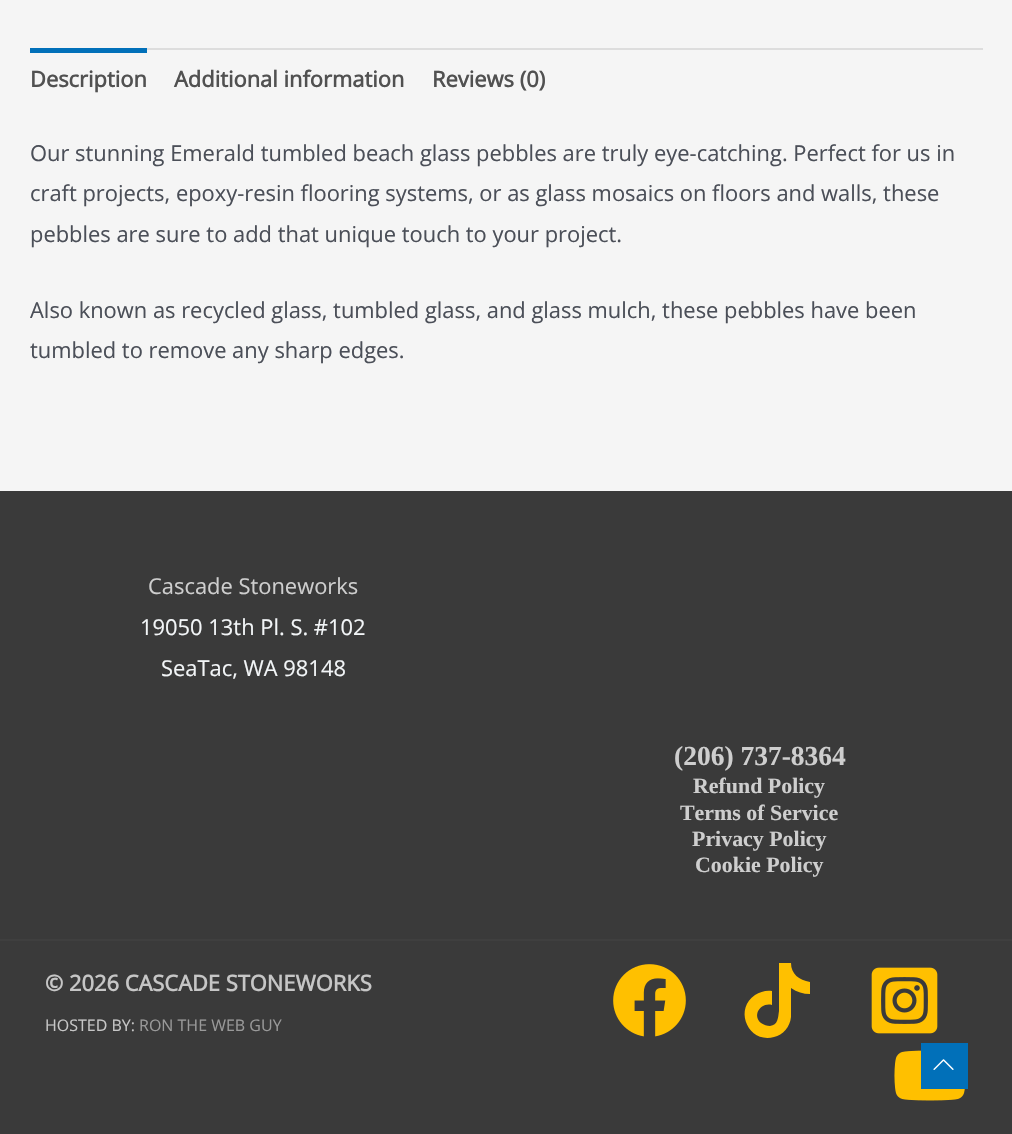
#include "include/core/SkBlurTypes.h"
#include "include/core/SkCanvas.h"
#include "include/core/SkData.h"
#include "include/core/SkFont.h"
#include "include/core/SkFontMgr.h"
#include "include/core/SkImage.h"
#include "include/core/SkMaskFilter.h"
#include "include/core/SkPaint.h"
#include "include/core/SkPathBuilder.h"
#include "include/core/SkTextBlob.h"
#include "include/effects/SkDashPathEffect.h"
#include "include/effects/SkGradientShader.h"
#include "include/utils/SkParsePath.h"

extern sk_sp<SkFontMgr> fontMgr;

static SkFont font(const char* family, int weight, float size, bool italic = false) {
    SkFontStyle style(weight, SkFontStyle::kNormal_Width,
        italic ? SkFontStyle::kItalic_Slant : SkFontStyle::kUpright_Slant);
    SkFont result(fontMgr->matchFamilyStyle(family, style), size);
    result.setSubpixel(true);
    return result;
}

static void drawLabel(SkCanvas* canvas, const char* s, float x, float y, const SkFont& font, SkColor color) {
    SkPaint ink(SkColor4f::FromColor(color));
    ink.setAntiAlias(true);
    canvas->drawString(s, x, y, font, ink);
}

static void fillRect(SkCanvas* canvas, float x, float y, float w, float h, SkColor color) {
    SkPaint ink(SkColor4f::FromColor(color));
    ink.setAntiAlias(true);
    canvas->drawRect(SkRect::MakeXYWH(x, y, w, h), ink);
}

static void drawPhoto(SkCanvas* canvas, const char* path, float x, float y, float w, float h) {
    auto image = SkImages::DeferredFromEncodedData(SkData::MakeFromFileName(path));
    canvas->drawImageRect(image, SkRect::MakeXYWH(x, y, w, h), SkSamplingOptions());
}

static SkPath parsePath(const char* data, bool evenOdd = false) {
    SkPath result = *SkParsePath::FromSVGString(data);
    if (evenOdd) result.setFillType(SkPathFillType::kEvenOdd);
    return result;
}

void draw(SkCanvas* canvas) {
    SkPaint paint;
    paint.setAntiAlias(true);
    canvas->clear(0xFFF5F5F5);
    fillRect(canvas, 147, 48, 836, 2, 0xFFDDDDDD);
    fillRect(canvas, 30, 48, 117, 5, 0xFF0170B9);
    SkFont font1 = font("Open Sans", 700, 21.9f);
    drawLabel(canvas, "Description", 30, 87, font1, 0xFF515151);
    drawLabel(canvas, "Additional information", 174, 87, font1, 0xFF515151);
    drawLabel(canvas, "Reviews (0)", 432, 87, font1, 0xFF515151);
    SkFont font2 = font("Open Sans", 400, 21.9f);
    drawLabel(canvas, "Our stunning Emerald tumbled beach glass pebbles are truly eye-catching. Perfect for us in", 30, 161, font2, 0xFF4B4F58);
    drawLabel(canvas, "craft projects, epoxy-resin flooring systems, or as glass mosaics on floors and walls, these", 30, 201, font2, 0xFF4B4F58);
    drawLabel(canvas, "pebbles are sure to add that unique touch to your project.", 30, 242, font2, 0xFF4B4F58);
    drawLabel(canvas, "Also known as recycled glass, tumbled glass, and glass mulch, these pebbles have been", 30, 318, font2, 0xFF4B4F58);
    drawLabel(canvas, "tumbled to remove any sharp edges.", 30, 358, font2, 0xFF4B4F58);
    fillRect(canvas, 0, 491, 1012, 448, 0xFF3A3A3A);
    drawLabel(canvas, "Cascade Stoneworks", 148, 594, font2, 0xFFCECECE);
    drawLabel(canvas, "19050 13th Pl. S. #102", 140, 635, font2, 0xFFF2F5F7);
    drawLabel(canvas, "SeaTac, WA 98148", 161, 676, font2, 0xFFF2F5F7);
    SkFont font3 = font("Liberation Serif", 700, 27.5f);
    drawLabel(canvas, "(206) 737-8364", 674, 765, font3, 0xFFCECECE);
    SkFont font4 = font("Liberation Serif", 700, 21.9f);
    drawLabel(canvas, "Refund Policy", 693, 793, font4, 0xFFCECECE);
    drawLabel(canvas, "Terms of Service", 680, 820, font4, 0xFFCECECE);
    drawLabel(canvas, "Privacy Policy", 692, 846, font4, 0xFFCECECE);
    drawLabel(canvas, "Cookie Policy", 695, 872, font4, 0xFFCECECE);
    fillRect(canvas, 0, 941, 1012, 193, 0xFF3A3A3A);
    fillRect(canvas, 0, 939, 1012, 2, 0xFF3F3F3F);
    drawLabel(canvas, "© 2026 CASCADE STONEWORKS", 45, 991, font1, 0xFFC6C6C6);
    SkFont font5 = font("Open Sans", 400, 16);
    drawLabel(canvas, "HOSTED BY:", 45, 1031, font5, 0xFFC6C6C6);
    drawLabel(canvas, "RON THE WEB GUY", 139, 1031, font5, 0xFF999999);
    drawPhoto(canvas, "assets/img1.png", 613, 964, 73, 73);
    paint.setColor(0xFFFFC000);
    canvas->drawPath(parsePath("M779 963H791C791 974 799 980 810 982V994C803 994 797 992 791 988V1017C790 1027 783 1035 774 1037C749 1044 733 1010 755 995C760 992 766 990 772 991V1005C760 1002 752 1016 761 1023C764 1025 767 1026 770 1026C778 1025 778 1018 779 1011Z"), paint);
    drawPhoto(canvas, "assets/img2.png", 871, 967, 67, 67);
    drawPhoto(canvas, "assets/img3.png", 894, 1050, 71, 51);
    fillRect(canvas, 921, 1043, 47, 46, 0xFF0170B9);
    drawPhoto(canvas, "assets/img4.png", 933, 1059, 21, 11);
}
